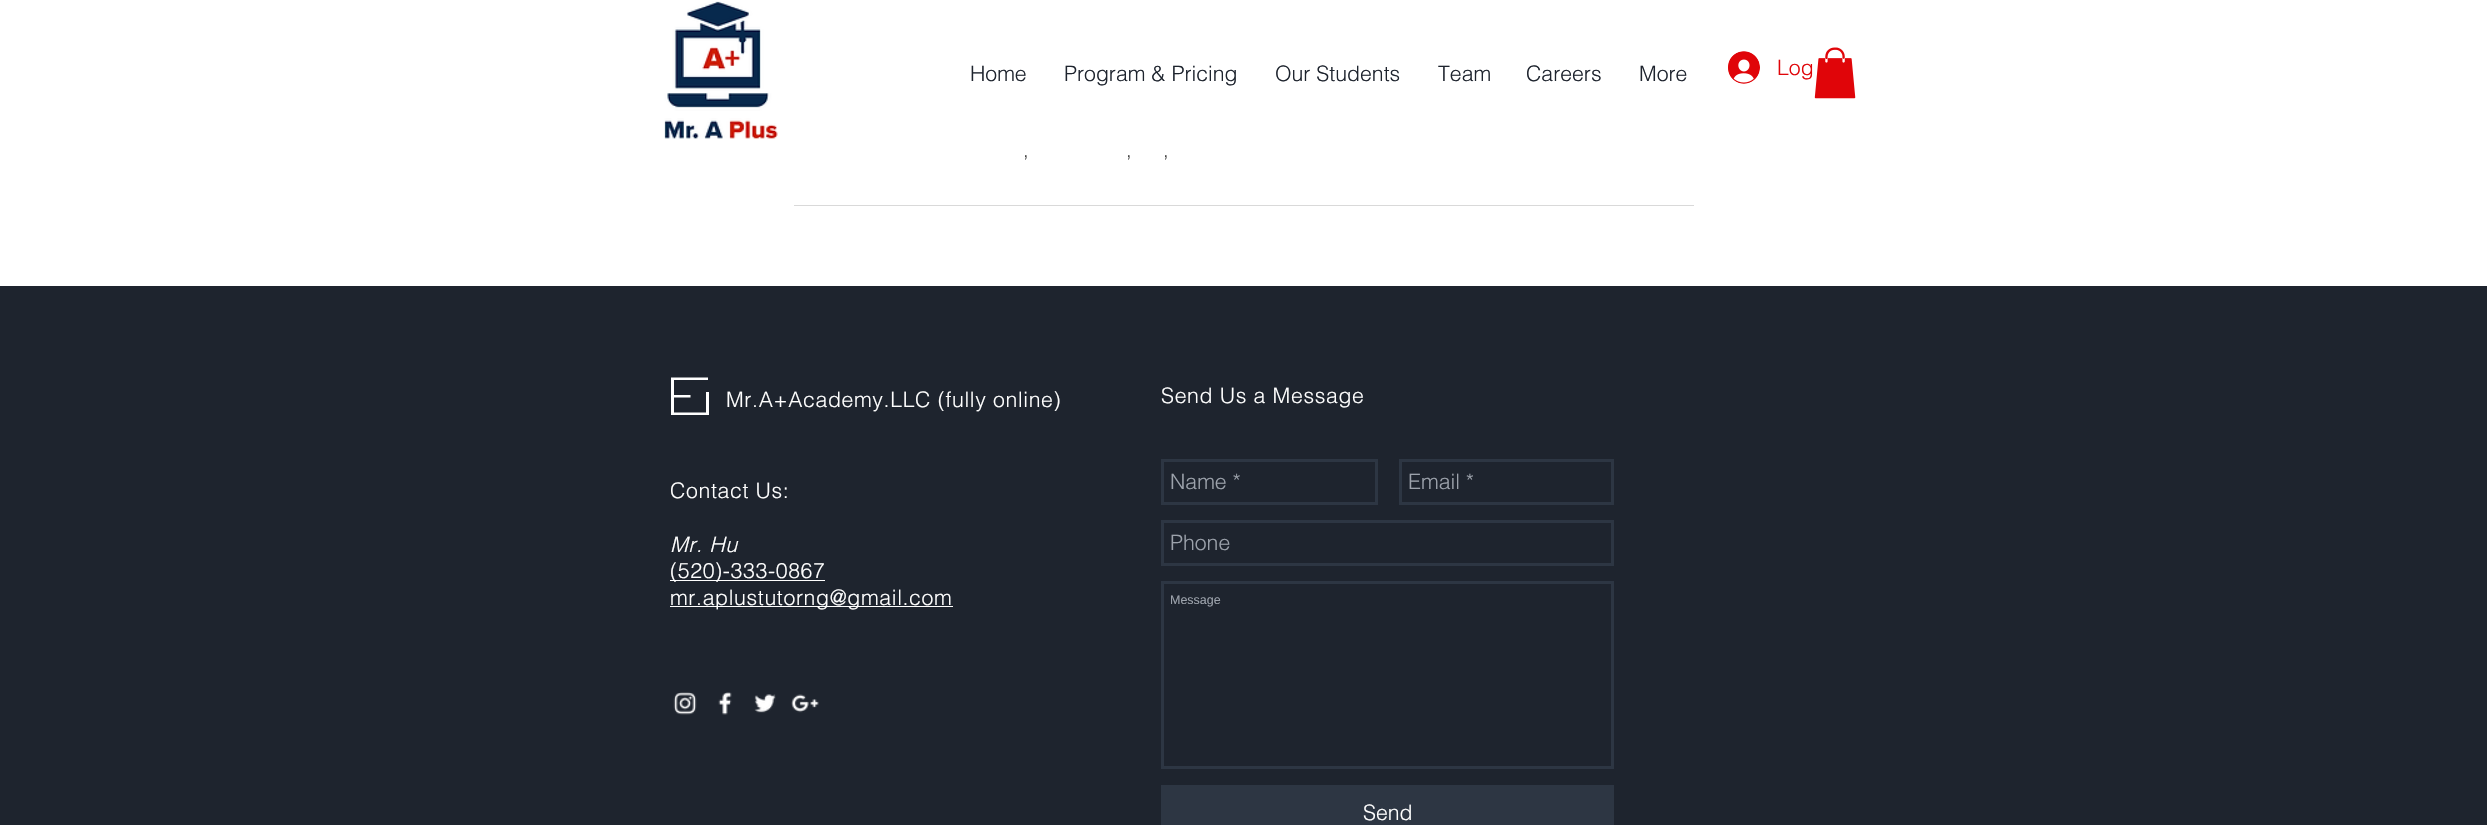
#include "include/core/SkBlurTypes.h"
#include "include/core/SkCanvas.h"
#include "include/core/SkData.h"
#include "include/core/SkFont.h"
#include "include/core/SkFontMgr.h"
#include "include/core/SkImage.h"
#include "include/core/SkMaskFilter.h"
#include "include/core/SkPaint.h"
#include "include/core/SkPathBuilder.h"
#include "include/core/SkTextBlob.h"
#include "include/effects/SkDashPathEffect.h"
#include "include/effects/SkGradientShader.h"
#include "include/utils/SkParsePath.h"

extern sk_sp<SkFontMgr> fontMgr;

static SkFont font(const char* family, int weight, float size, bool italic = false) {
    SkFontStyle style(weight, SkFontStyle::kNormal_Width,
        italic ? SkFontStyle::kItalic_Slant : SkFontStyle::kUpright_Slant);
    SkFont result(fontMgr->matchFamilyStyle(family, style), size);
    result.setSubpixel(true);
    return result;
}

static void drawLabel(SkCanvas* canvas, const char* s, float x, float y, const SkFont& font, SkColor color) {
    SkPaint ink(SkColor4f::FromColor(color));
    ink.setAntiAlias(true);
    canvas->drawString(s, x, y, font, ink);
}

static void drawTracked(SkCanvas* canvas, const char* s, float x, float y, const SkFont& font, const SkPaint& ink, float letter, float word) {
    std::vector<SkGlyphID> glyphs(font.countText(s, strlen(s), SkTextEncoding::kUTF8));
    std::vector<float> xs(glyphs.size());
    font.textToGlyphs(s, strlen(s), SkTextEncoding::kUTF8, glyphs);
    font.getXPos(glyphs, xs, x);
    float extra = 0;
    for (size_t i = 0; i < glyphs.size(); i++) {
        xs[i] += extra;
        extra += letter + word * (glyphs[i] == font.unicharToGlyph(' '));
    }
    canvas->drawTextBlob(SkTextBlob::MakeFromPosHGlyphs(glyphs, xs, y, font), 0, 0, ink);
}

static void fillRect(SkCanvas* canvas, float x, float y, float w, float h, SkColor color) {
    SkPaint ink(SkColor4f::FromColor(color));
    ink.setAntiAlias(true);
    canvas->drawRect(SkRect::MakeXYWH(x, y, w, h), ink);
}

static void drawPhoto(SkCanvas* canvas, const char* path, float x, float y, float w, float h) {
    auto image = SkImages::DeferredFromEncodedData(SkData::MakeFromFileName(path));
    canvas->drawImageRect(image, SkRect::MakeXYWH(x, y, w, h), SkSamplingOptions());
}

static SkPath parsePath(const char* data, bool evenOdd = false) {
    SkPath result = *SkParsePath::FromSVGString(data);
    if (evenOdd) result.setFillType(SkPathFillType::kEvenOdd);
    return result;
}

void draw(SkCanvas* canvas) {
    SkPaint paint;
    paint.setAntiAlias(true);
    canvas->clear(0xFFFFFFFF);
    drawPhoto(canvas, "assets/img1.png", 664, 1, 114, 138);
    SkFont font1 = font("helvetica", 300, 21.25f);
    drawLabel(canvas, "Home", 970, 81, font1, 0xFF1E242E);
    drawLabel(canvas, "Program & Pricing", 1064, 81, font1, 0xFF1E242E);
    drawLabel(canvas, "Our Students", 1275, 81, font1, 0xFF1E242E);
    drawLabel(canvas, "Team", 1438, 81, font1, 0xFF1E242E);
    drawLabel(canvas, "Careers", 1526, 81, font1, 0xFF1E242E);
    drawLabel(canvas, "More", 1639, 81, font1, 0xFF1E242E);
    drawPhoto(canvas, "assets/img2.png", 1728, 51, 32, 33);
    drawLabel(canvas, "Log", 1777, 75, font1, 0xFFE00509);
    drawPhoto(canvas, "assets/img3.png", 1814, 47, 42, 52);
    SkFont font2 = font("helvetica", 300, 20);
    drawLabel(canvas, ",", 1023, 157, font2, 0xFF414141);
    drawLabel(canvas, ",", 1126, 157, font2, 0xFF414141);
    drawLabel(canvas, ",", 1163, 157, font2, 0xFF414141);
    fillRect(canvas, 794, 205, 900, 1, 0xFFD9D9D9);
    fillRect(canvas, 0, 286, 2487, 539, 0xFF1E242E);
    paint.setColor(0xFFFFFFFF);
    canvas->drawPath(parsePath("M706 392V412.5H674V397.5H690.5V395H674V380H708V377.5H671V415H709V392Z"), paint);
    drawTracked(canvas, "Mr.A+Academy.LLC (fully online)", 726, 407, font1, paint, 0.65f, 0);
    drawTracked(canvas, "Send Us a Message", 1161, 403, font1, paint, 0.65f, 0);
    drawTracked(canvas, "Contact Us:", 670, 498, font1, paint, 0.65f, 0);
    SkFont font3 = font("helvetica", 300, 21.25f, true);
    drawTracked(canvas, "Mr. Hu", 670, 552, font3, paint, 0.65f, 0);
    fillRect(canvas, 670, 580, 155, 1, 0xFFFFFFFF);
    drawTracked(canvas, "(520)-333-0867", 670, 578, font1, paint, 0.65f, 0);
    fillRect(canvas, 670, 606, 283, 1, 0xFFFFFFFF);
    drawTracked(canvas, "mr.aplustutorng@gmail.com", 670, 605, font1, paint, 0.65f, 0);
    paint.setStroke(true);
    paint.setStrokeWidth(3);
    paint.setColor(0xFF2D3643);
    canvas->drawRect(SkRect::MakeXYWH(1162.5f, 460.5f, 214, 43), paint);
    drawLabel(canvas, "Name *", 1170, 489, font1, 0xFF9CA2AB);
    canvas->drawRect(SkRect::MakeXYWH(1400.5f, 460.5f, 212, 43), paint);
    drawLabel(canvas, "Email *", 1408, 489, font1, 0xFF9CA2AB);
    canvas->drawRect(SkRect::MakeXYWH(1162.5f, 521.5f, 450, 43), paint);
    drawLabel(canvas, "Phone", 1170, 550, font1, 0xFF9CA2AB);
    canvas->drawRect(SkRect::MakeXYWH(1162.5f, 582.5f, 450, 185), paint);
    SkFont font4 = font("Liberation Sans", 400, 12.5f);
    drawLabel(canvas, "Message", 1170, 604, font4, 0xFF9CA2AB);
    fillRect(canvas, 1161, 785, 453, 40, 0xFF2D3643);
    drawLabel(canvas, "Send", 1363, 820, font1, 0xFFFFFFFF);
    drawPhoto(canvas, "assets/img4.png", 673, 692, 24, 23);
    drawPhoto(canvas, "assets/img5.png", 718, 692, 14, 23);
    drawPhoto(canvas, "assets/img6.png", 754, 694, 22, 19);
    drawPhoto(canvas, "assets/img7.png", 791, 694, 28, 19);
}
